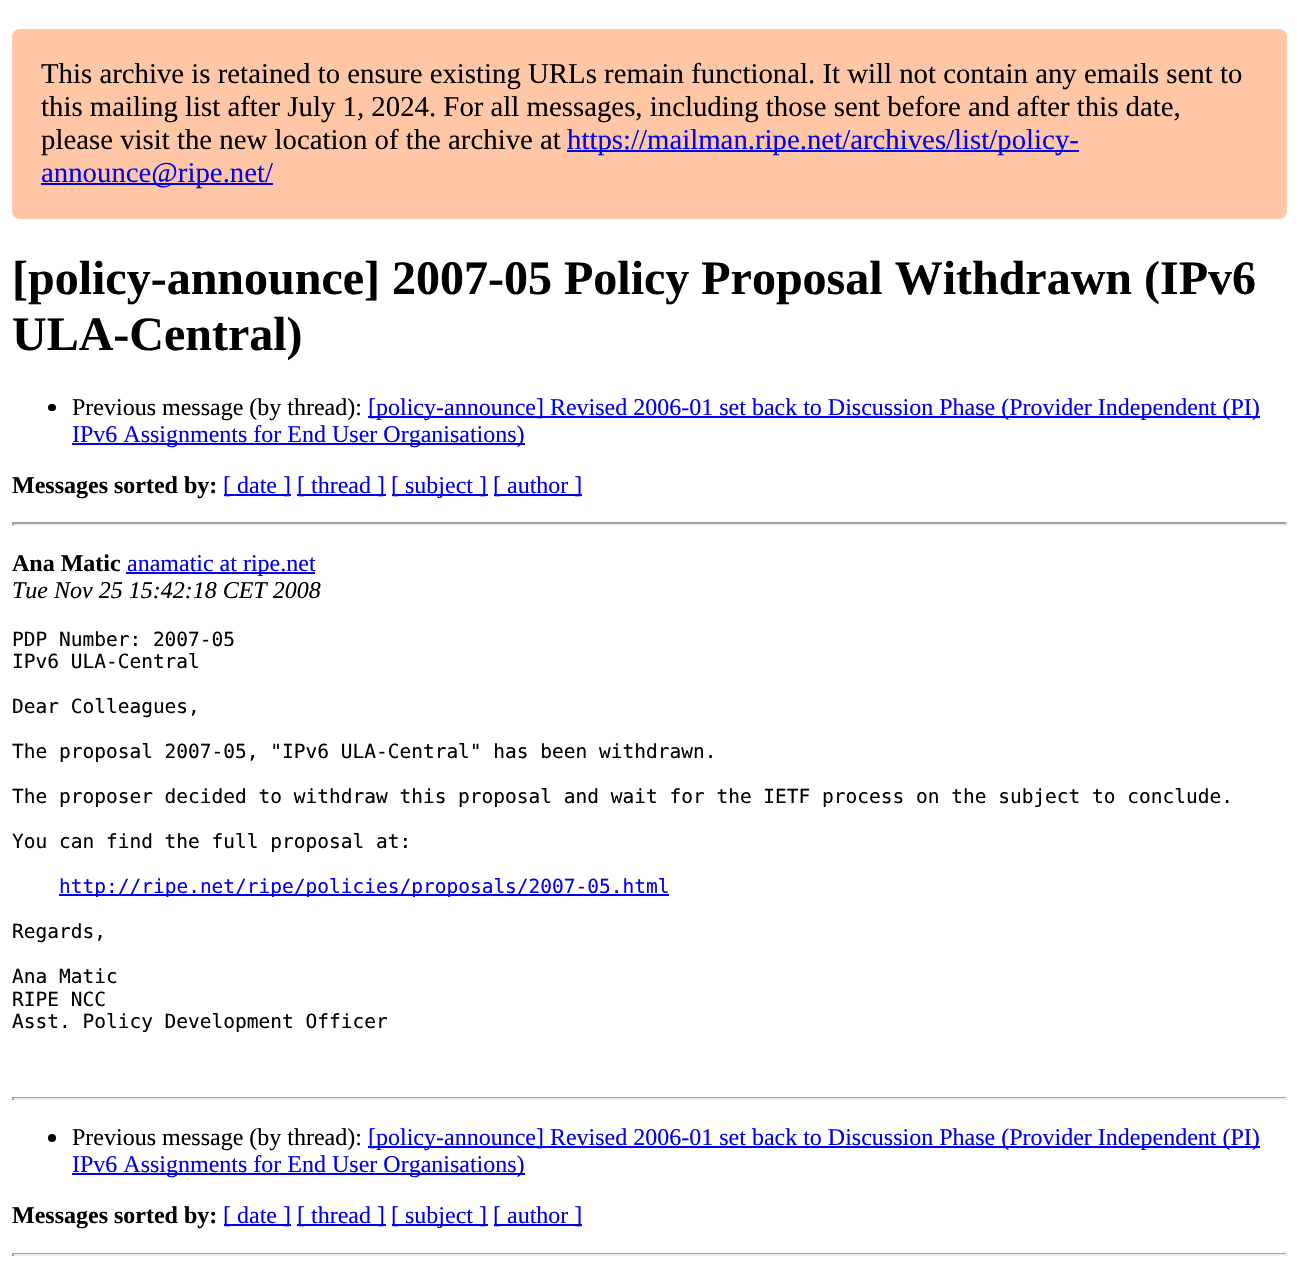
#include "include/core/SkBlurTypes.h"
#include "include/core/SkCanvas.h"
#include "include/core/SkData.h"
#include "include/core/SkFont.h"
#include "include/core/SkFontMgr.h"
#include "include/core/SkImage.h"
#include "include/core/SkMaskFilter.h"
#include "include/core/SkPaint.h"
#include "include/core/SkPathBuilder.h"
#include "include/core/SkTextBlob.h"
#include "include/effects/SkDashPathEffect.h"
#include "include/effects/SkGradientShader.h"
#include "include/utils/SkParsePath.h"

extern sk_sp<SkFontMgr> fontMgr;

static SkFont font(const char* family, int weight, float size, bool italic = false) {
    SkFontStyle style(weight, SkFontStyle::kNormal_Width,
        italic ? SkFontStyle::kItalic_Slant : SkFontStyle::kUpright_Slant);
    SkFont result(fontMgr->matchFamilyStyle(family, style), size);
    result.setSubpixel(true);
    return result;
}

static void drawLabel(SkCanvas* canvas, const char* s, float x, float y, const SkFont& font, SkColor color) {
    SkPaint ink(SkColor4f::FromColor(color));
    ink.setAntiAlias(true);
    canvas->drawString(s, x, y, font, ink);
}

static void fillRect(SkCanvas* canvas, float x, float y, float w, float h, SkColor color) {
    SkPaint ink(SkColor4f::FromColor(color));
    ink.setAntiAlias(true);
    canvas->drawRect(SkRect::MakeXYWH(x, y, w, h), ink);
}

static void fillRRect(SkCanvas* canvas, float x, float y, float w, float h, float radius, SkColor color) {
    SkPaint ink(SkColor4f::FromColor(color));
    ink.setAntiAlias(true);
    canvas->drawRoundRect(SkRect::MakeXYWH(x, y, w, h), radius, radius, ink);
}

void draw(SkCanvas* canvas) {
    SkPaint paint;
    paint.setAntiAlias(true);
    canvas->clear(0xFFFFFFFF);
    fillRRect(canvas, 12, 29, 1275, 190, 8, 0xFFFFC7A6);
    SkFont font1 = font("Liberation Serif", 400, 28.8f);
    drawLabel(canvas, "This archive is retained to ensure existing URLs remain functional. It will not contain any emails sent to", 41, 83, font1, 0xFF000000);
    drawLabel(canvas, "this mailing list after July 1, 2024. For all messages, including those sent before and after this date,", 41, 116, font1, 0xFF000000);
    drawLabel(canvas, "please visit the new location of the archive at", 41, 149, font1, 0xFF000000);
    fillRect(canvas, 567, 150, 512, 2, 0xFF0000EE);
    drawLabel(canvas, "https://mailman.ripe.net/archives/list/policy-", 567, 149, font1, 0xFF0000EE);
    fillRect(canvas, 41, 183, 232, 2, 0xFF0000EE);
    drawLabel(canvas, "announce@ripe.net/", 41, 182, font1, 0xFF0000EE);
    SkFont font2 = font("Liberation Serif", 700, 48);
    drawLabel(canvas, "[policy-announce] 2007-05 Policy Proposal Withdrawn (IPv6", 12, 294, font2, 0xFF000000);
    drawLabel(canvas, "ULA-Central)", 12, 350, font2, 0xFF000000);
    fillRRect(canvas, 48, 404, 8, 7, 3.5f, 0xFF000000);
    SkFont font3 = font("Liberation Serif", 400, 24);
    drawLabel(canvas, "Previous message (by thread):", 72, 415, font3, 0xFF000000);
    fillRect(canvas, 368, 416, 892, 2, 0xFF0000EE);
    drawLabel(canvas, "[policy-announce] Revised 2006-01 set back to Discussion Phase (Provider Independent (PI)", 368, 415, font3, 0xFF0000EE);
    fillRect(canvas, 72, 443, 453, 2, 0xFF0000EE);
    drawLabel(canvas, "IPv6 Assignments for End User Organisations)", 72, 442, font3, 0xFF0000EE);
    SkFont font4 = font("Liberation Serif", 700, 24);
    drawLabel(canvas, "Messages sorted by:", 12, 493, font4, 0xFF000000);
    fillRect(canvas, 224, 494, 67, 2, 0xFF0000EE);
    drawLabel(canvas, "[ date ]", 223, 493, font3, 0xFF0000EE);
    fillRect(canvas, 297, 494, 89, 2, 0xFF0000EE);
    drawLabel(canvas, "[ thread ]", 297, 493, font3, 0xFF0000EE);
    fillRect(canvas, 392, 494, 96, 2, 0xFF0000EE);
    drawLabel(canvas, "[ subject ]", 391, 493, font3, 0xFF0000EE);
    fillRect(canvas, 494, 494, 88, 2, 0xFF0000EE);
    drawLabel(canvas, "[ author ]", 493, 493, font3, 0xFF0000EE);
    fillRect(canvas, 12, 522, 1275, 2, 0xFF9F9F9F);
    fillRect(canvas, 1286, 522, 2, 3, 0xFFEEEEEE);
    fillRect(canvas, 12, 524, 1275, 2, 0xFFEEEEEE);
    fillRect(canvas, 12, 522, 2, 3, 0xFF9F9F9F);
    drawLabel(canvas, "Ana Matic", 12, 571, font4, 0xFF000000);
    fillRect(canvas, 126, 572, 189, 2, 0xFF0000EE);
    drawLabel(canvas, "anamatic at ripe.net", 127, 571, font3, 0xFF0000EE);
    SkFont font5 = font("Liberation Serif", 400, 24, true);
    drawLabel(canvas, "Tue Nov 25 15:42:18 CET 2008", 12, 598, font5, 0xFF000000);
    SkFont font6 = font("DejaVu Sans Mono", 400, 19.5f);
    drawLabel(canvas, "PDP Number: 2007-05", 12, 646, font6, 0xFF000000);
    drawLabel(canvas, "IPv6 ULA-Central", 12, 668, font6, 0xFF000000);
    drawLabel(canvas, "Dear Colleagues,", 12, 713, font6, 0xFF000000);
    drawLabel(canvas, "The proposal 2007-05, \"IPv6 ULA-Central\" has been withdrawn.", 12, 758, font6, 0xFF000000);
    drawLabel(canvas, "The proposer decided to withdraw this proposal and wait for the IETF process on the subject to conclude.", 12, 803, font6, 0xFF000000);
    drawLabel(canvas, "You can find the full proposal at:", 12, 848, font6, 0xFF000000);
    fillRect(canvas, 59, 894, 610, 2, 0xFF0000EE);
    drawLabel(canvas, "http://ripe.net/ripe/policies/proposals/2007-05.html", 59, 893, font6, 0xFF0000EE);
    drawLabel(canvas, "Regards,", 12, 938, font6, 0xFF000000);
    drawLabel(canvas, "Ana Matic", 12, 983, font6, 0xFF000000);
    drawLabel(canvas, "RIPE NCC", 12, 1006, font6, 0xFF000000);
    drawLabel(canvas, "Asst. Policy Development Officer", 12, 1028, font6, 0xFF000000);
    fillRect(canvas, 12, 1097, 1275, 1, 0xFF9F9F9F);
    fillRect(canvas, 1286, 1097, 2, 3, 0xFFEEEEEE);
    fillRect(canvas, 12, 1098, 1275, 2, 0xFFEEEEEE);
    fillRect(canvas, 12, 1097, 2, 3, 0xFF9F9F9F);
    paint.setColor(0xFF000000);
    canvas->drawCircle(52, 1138, 4, paint);
    drawLabel(canvas, "Previous message (by thread):", 72, 1145, font3, 0xFF000000);
    fillRect(canvas, 368, 1146, 892, 2, 0xFF0000EE);
    drawLabel(canvas, "[policy-announce] Revised 2006-01 set back to Discussion Phase (Provider Independent (PI)", 368, 1145, font3, 0xFF0000EE);
    fillRect(canvas, 72, 1173, 453, 2, 0xFF0000EE);
    drawLabel(canvas, "IPv6 Assignments for End User Organisations)", 72, 1172, font3, 0xFF0000EE);
    drawLabel(canvas, "Messages sorted by:", 12, 1223, font4, 0xFF000000);
    fillRect(canvas, 224, 1224, 67, 2, 0xFF0000EE);
    drawLabel(canvas, "[ date ]", 223, 1223, font3, 0xFF0000EE);
    fillRect(canvas, 297, 1224, 89, 2, 0xFF0000EE);
    drawLabel(canvas, "[ thread ]", 297, 1223, font3, 0xFF0000EE);
    fillRect(canvas, 392, 1224, 96, 2, 0xFF0000EE);
    drawLabel(canvas, "[ subject ]", 391, 1223, font3, 0xFF0000EE);
    fillRect(canvas, 494, 1224, 88, 2, 0xFF0000EE);
    drawLabel(canvas, "[ author ]", 493, 1223, font3, 0xFF0000EE);
    fillRect(canvas, 12, 1253, 1275, 1, 0xFF9F9F9F);
    fillRect(canvas, 1286, 1253, 2, 3, 0xFFEEEEEE);
    fillRect(canvas, 12, 1254, 1275, 2, 0xFFEEEEEE);
    fillRect(canvas, 12, 1253, 2, 3, 0xFF9F9F9F);
}
